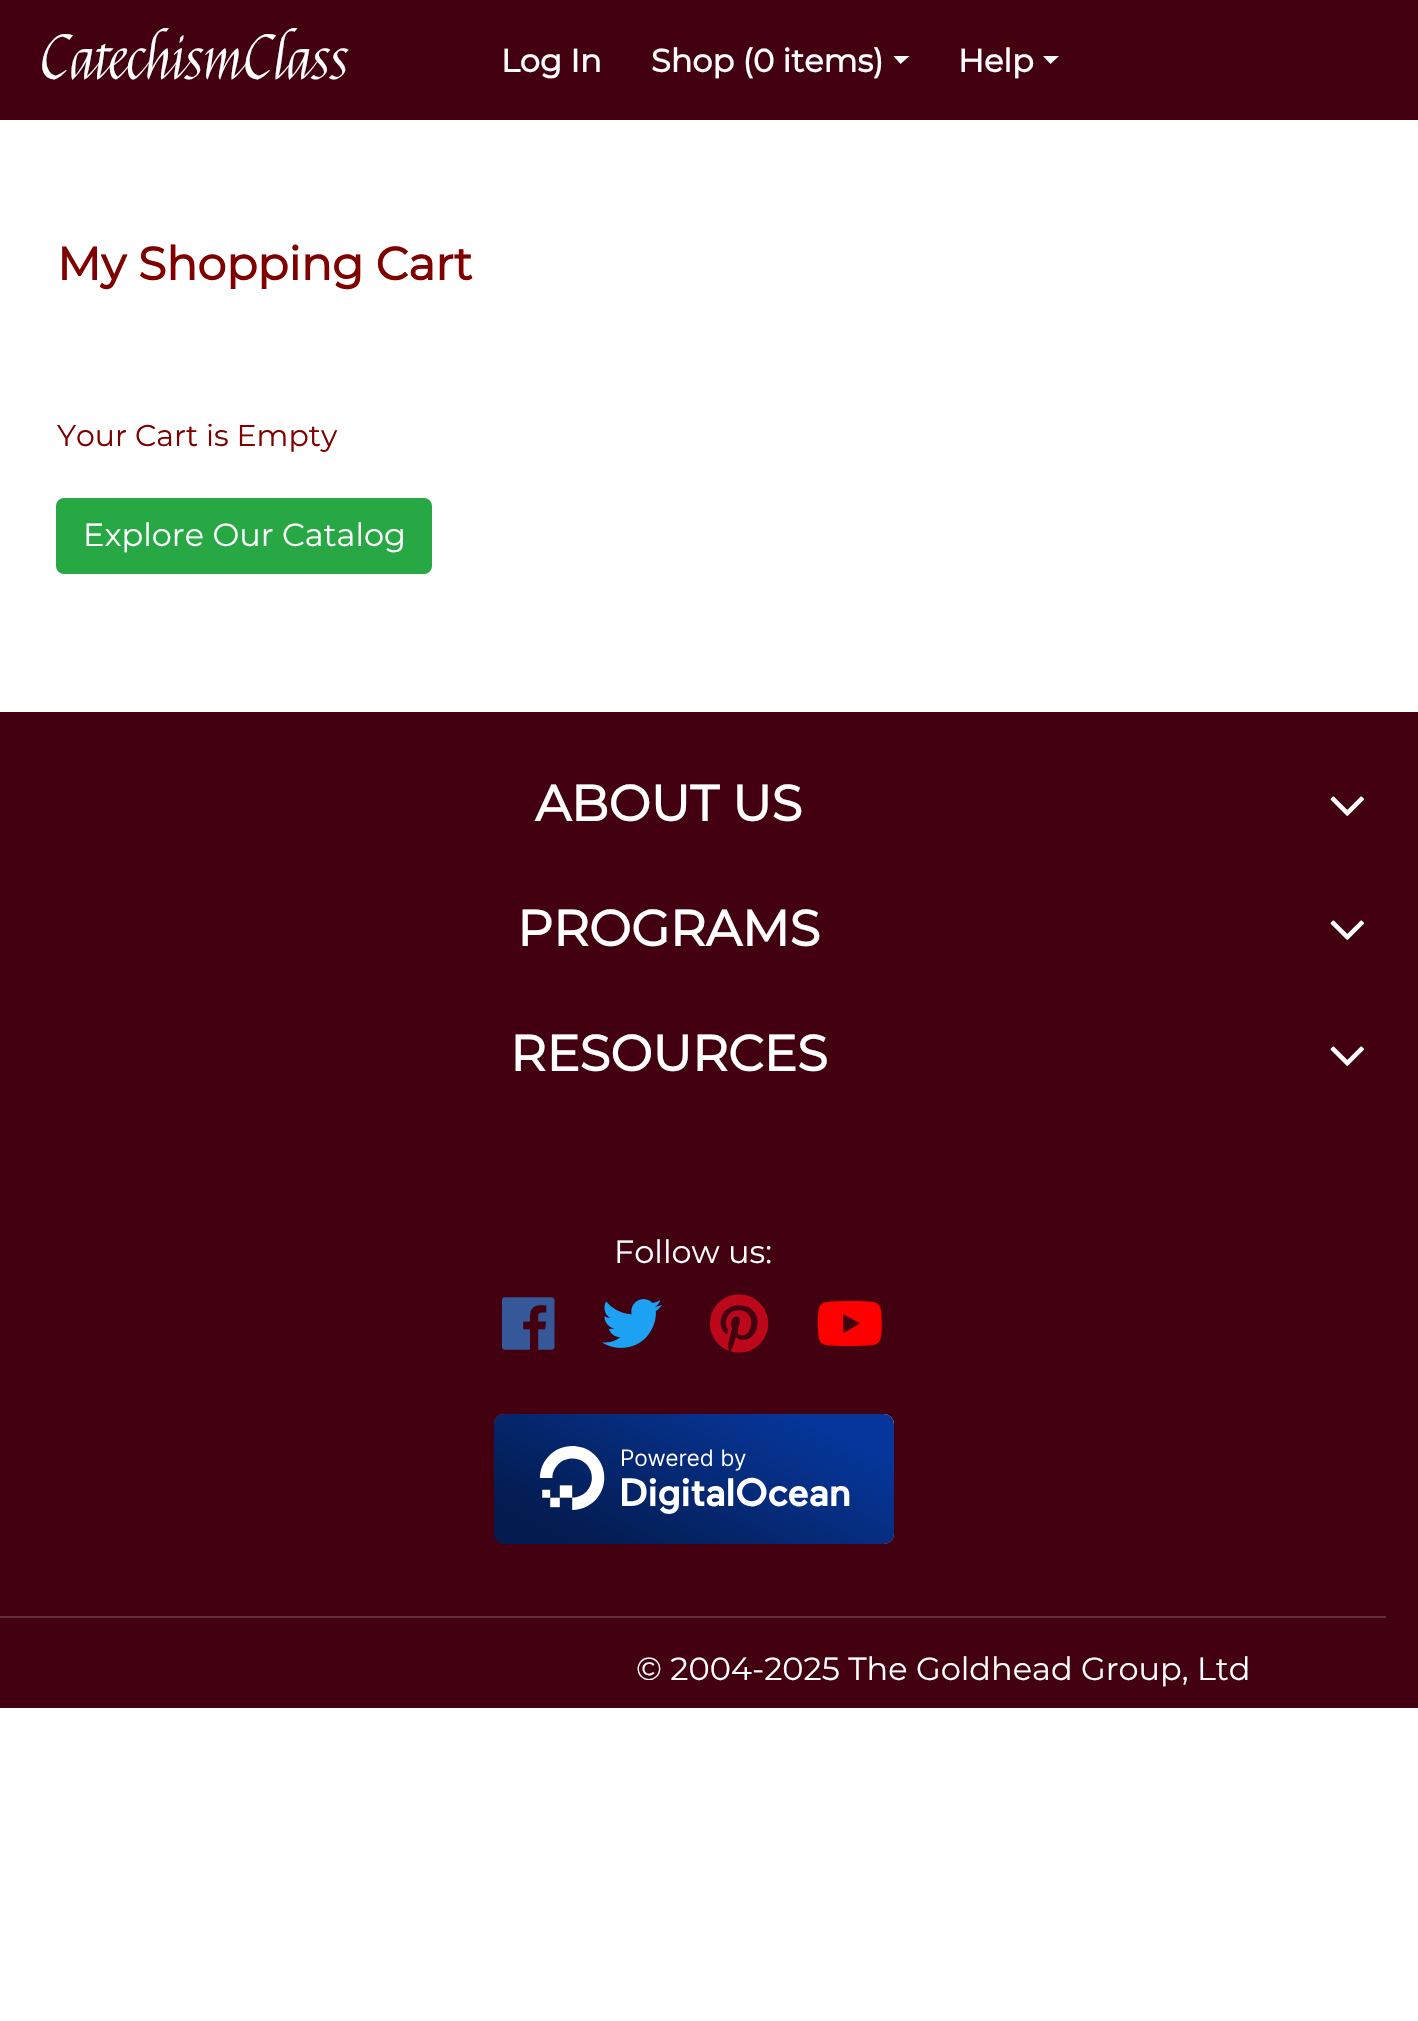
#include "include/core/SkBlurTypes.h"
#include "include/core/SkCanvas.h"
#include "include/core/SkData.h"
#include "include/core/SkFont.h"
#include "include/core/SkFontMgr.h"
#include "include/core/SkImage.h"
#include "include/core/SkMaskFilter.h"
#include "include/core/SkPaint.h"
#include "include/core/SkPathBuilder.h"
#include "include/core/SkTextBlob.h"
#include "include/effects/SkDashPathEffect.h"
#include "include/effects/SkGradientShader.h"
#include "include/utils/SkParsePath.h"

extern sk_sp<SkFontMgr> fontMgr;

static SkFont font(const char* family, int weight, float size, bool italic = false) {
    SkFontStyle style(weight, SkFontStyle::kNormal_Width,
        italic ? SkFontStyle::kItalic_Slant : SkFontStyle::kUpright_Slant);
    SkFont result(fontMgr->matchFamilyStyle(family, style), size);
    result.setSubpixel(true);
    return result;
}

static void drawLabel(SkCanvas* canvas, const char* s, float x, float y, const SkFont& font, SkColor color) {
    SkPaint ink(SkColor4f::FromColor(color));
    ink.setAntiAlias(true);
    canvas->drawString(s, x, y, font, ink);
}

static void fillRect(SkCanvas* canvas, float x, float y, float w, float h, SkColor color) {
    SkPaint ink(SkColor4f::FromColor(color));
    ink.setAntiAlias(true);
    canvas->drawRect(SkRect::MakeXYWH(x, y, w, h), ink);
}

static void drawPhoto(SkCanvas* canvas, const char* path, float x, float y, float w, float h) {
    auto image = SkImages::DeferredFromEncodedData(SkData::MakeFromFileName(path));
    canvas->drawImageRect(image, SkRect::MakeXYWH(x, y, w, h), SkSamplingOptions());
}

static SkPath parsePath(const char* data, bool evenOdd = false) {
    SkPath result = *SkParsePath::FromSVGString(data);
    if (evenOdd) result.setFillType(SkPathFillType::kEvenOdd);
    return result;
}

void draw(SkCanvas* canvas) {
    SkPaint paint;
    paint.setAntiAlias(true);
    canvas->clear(0xFFFFFFFF);
    fillRect(canvas, 0, 0, 1418, 120, 0xFF420011);
    SkFont font1 = font("Felipa", 400, 60);
    drawLabel(canvas, "CatechismClass", 40, 79, font1, 0xFFFFFFFF);
    SkFont font2 = font("Montserrat", 700, 32);
    drawLabel(canvas, "Log In", 501, 72, font2, 0xFFFFFFFF);
    drawLabel(canvas, "Shop (0 items)", 651, 72, font2, 0xFFFFFFFF);
    paint.setColor(0xFFFFFFFF);
    canvas->drawPath(parsePath("M893.5 56H909.5L900.5 64Z"), paint);
    drawLabel(canvas, "Help", 958, 72, font2, 0xFFFFFFFF);
    canvas->drawPath(parsePath("M1043 56H1059L1050.5 64Z"), paint);
    SkFont font3 = font("Montserrat", 700, 46);
    drawLabel(canvas, "My Shopping Cart", 57, 280, font3, 0xFF800000);
    SkFont font4 = font("Montserrat", 100, 30);
    drawLabel(canvas, "Your Cart is Empty", 57, 446, font4, 0xFF800000);
    paint.setColor(0xFF28A745);
    canvas->drawRoundRect(SkRect::MakeXYWH(57, 499, 374, 74), 7, 7, paint);
    paint.setStroke(true);
    paint.setStrokeWidth(2);
    canvas->drawRoundRect(SkRect::MakeXYWH(57, 499, 374, 74), 7, 7, paint);
    SkFont font5 = font("Montserrat", 100, 32);
    drawLabel(canvas, "Explore Our Catalog", 83, 546, font5, 0xFFFFFFFF);
    fillRect(canvas, 0, 712, 1418, 996, 0xFF420011);
    SkFont font6 = font("Montserrat", 700, 50);
    drawLabel(canvas, "ABOUT US", 535, 821, font6, 0xFFFFFFFF);
    drawPhoto(canvas, "assets/img1.png", 1330, 796, 34, 20);
    drawLabel(canvas, "PROGRAMS", 517, 946, font6, 0xFFFFFFFF);
    drawPhoto(canvas, "assets/img1.png", 1330, 920, 34, 20);
    drawLabel(canvas, "RESOURCES", 510, 1071, font6, 0xFFFFFFFF);
    drawPhoto(canvas, "assets/img1.png", 1330, 1046, 34, 20);
    drawLabel(canvas, "Follow us:", 614, 1263, font5, 0xFFFFFFFF);
    drawPhoto(canvas, "assets/img2.png", 502, 1297, 53, 53);
    drawPhoto(canvas, "assets/img3.png", 602, 1299, 60, 49);
    drawPhoto(canvas, "assets/img4.png", 710, 1294, 59, 59);
    drawPhoto(canvas, "assets/img5.png", 817, 1301, 65, 45);
    drawPhoto(canvas, "assets/img6.png", 494, 1414, 400, 130);
    fillRect(canvas, 0, 1616, 1386, 2, 0xFF632F3E);
    drawLabel(canvas, "© 2004-2025 The Goldhead Group, Ltd", 636, 1680, font5, 0xFFFFFFFF);
}
